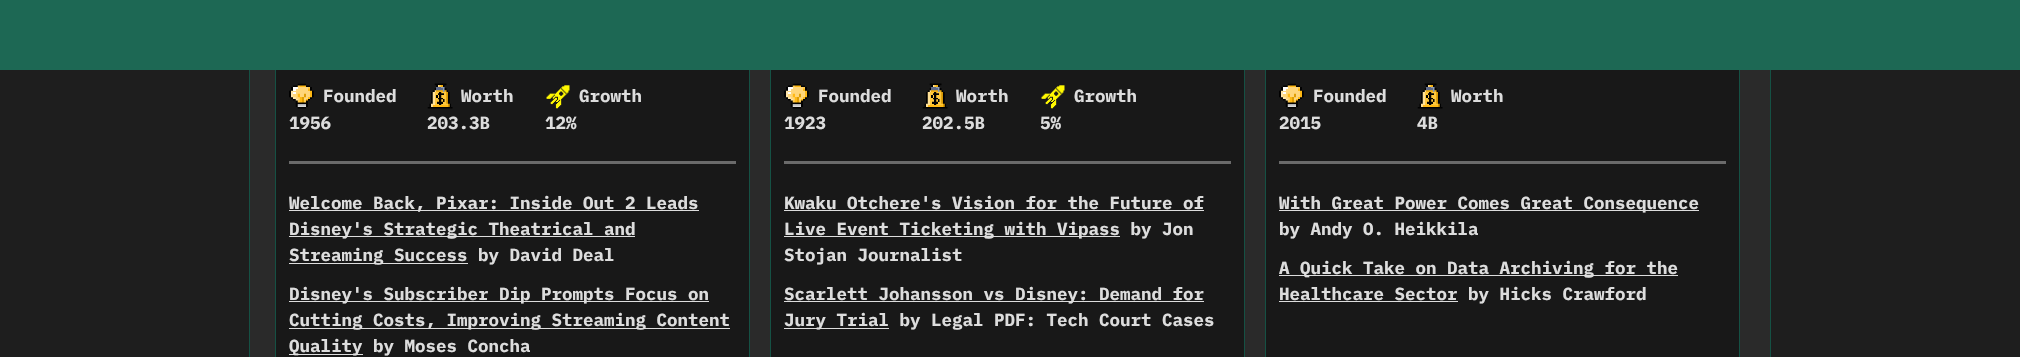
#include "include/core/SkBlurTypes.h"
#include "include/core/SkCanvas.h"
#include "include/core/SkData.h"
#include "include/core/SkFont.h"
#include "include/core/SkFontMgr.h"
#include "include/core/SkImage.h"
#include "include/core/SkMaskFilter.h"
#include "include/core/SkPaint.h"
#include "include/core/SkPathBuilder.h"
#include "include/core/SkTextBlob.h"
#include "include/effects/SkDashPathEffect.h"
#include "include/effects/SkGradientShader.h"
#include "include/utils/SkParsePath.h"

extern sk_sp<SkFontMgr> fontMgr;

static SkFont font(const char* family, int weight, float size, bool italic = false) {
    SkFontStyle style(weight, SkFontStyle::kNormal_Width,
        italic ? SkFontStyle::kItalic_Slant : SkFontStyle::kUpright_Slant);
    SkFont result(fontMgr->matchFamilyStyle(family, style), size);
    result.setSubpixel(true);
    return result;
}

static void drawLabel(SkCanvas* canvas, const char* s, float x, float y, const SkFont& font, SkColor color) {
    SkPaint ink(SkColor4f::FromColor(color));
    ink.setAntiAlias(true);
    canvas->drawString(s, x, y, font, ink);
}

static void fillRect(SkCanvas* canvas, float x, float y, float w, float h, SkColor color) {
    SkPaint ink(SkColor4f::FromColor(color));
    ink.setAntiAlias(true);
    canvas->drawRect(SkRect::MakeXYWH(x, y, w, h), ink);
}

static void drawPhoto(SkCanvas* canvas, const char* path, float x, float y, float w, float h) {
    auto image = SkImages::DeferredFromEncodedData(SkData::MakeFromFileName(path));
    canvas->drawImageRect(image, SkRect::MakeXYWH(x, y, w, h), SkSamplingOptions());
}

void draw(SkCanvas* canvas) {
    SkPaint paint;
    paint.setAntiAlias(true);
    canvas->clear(0xFF1E1E1E);
    fillRect(canvas, 250, 70, 1520, 287, 0xFF2A2A2A);
    paint.setStroke(true);
    paint.setStrokeWidth(1);
    paint.setColor(0xFF155144);
    canvas->drawRect(SkRect::MakeXYWH(249.5f, -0.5f, 1521, 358), paint);
    fillRect(canvas, 276, 70, 473, 287, 0xFF181818);
    canvas->drawRect(SkRect::MakeXYWH(275.5f, -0.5f, 474, 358), paint);
    fillRect(canvas, 771, 70, 473, 287, 0xFF181818);
    canvas->drawRect(SkRect::MakeXYWH(770.5f, -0.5f, 474, 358), paint);
    fillRect(canvas, 1266, 70, 473, 287, 0xFF181818);
    canvas->drawRect(SkRect::MakeXYWH(1265.5f, -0.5f, 474, 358), paint);
    fillRect(canvas, 0, 0, 2020, 70, 0xFF1D6854);
    drawPhoto(canvas, "assets/img1.png", 289, 83, 25, 26);
    SkFont font1 = font("IBM Plex Mono", 700, 17.5f);
    drawLabel(canvas, "Founded", 323, 102, font1, 0xFFDDDDDD);
    drawLabel(canvas, "1956", 289, 129, font1, 0xFFDDDDDD);
    drawPhoto(canvas, "assets/img2.png", 427, 83, 26, 26);
    drawLabel(canvas, "Worth", 461, 102, font1, 0xFFDDDDDD);
    drawLabel(canvas, "203.3B", 427, 129, font1, 0xFFDDDDDD);
    drawPhoto(canvas, "assets/img3.png", 546, 85, 24, 24);
    drawLabel(canvas, "Growth", 579, 102, font1, 0xFFDDDDDD);
    drawLabel(canvas, "12%", 545, 129, font1, 0xFFDDDDDD);
    fillRect(canvas, 289, 161, 447, 3, 0xFF6A6A6A);
    fillRect(canvas, 289, 210, 410, 1, 0xFFDDDDDD);
    drawLabel(canvas, "Welcome Back, Pixar: Inside Out 2 Leads", 289, 209, font1, 0xFFDDDDDD);
    fillRect(canvas, 289, 236, 346, 1, 0xFFDDDDDD);
    drawLabel(canvas, "Disney's Strategic Theatrical and", 289, 235, font1, 0xFFDDDDDD);
    fillRect(canvas, 289, 263, 179, 1, 0xFFDDDDDD);
    drawLabel(canvas, "Streaming Success by David Deal", 289, 261, font1, 0xFFDDDDDD);
    fillRect(canvas, 289, 301, 420, 1, 0xFFDDDDDD);
    drawLabel(canvas, "Disney's Subscriber Dip Prompts Focus on", 289, 300, font1, 0xFFDDDDDD);
    fillRect(canvas, 289, 328, 441, 1, 0xFFDDDDDD);
    drawLabel(canvas, "Cutting Costs, Improving Streaming Content", 289, 326, font1, 0xFFDDDDDD);
    fillRect(canvas, 289, 354, 74, 1, 0xFFDDDDDD);
    drawLabel(canvas, "Quality by Moses Concha", 289, 352, font1, 0xFFDDDDDD);
    drawPhoto(canvas, "assets/img1.png", 784, 83, 25, 26);
    drawLabel(canvas, "Founded", 818, 102, font1, 0xFFDDDDDD);
    drawLabel(canvas, "1923", 784, 129, font1, 0xFFDDDDDD);
    drawPhoto(canvas, "assets/img2.png", 922, 83, 26, 26);
    drawLabel(canvas, "Worth", 956, 102, font1, 0xFFDDDDDD);
    drawLabel(canvas, "202.5B", 922, 129, font1, 0xFFDDDDDD);
    drawPhoto(canvas, "assets/img3.png", 1041, 85, 24, 24);
    drawLabel(canvas, "Growth", 1074, 102, font1, 0xFFDDDDDD);
    drawLabel(canvas, "5%", 1040, 129, font1, 0xFFDDDDDD);
    fillRect(canvas, 784, 161, 447, 3, 0xFF6A6A6A);
    drawLabel(canvas, "Kwaku Otchere's Vision for the Future of", 784, 209, font1, 0xFFDDDDDD);
    fillRect(canvas, 784, 210, 420, 1, 0xFFDDDDDD);
    fillRect(canvas, 784, 236, 336, 1, 0xFFDDDDDD);
    drawLabel(canvas, "Live Event Ticketing with Vipass by Jon", 784, 235, font1, 0xFFDDDDDD);
    drawLabel(canvas, "Stojan Journalist", 784, 261, font1, 0xFFDDDDDD);
    fillRect(canvas, 784, 301, 420, 1, 0xFFDDDDDD);
    drawLabel(canvas, "Scarlett Johansson vs Disney: Demand for", 784, 300, font1, 0xFFDDDDDD);
    fillRect(canvas, 784, 328, 105, 1, 0xFFDDDDDD);
    drawLabel(canvas, "Jury Trial by Legal PDF: Tech Court Cases", 784, 326, font1, 0xFFDDDDDD);
    drawPhoto(canvas, "assets/img1.png", 1279, 83, 25, 26);
    drawLabel(canvas, "Founded", 1313, 102, font1, 0xFFDDDDDD);
    drawLabel(canvas, "2015", 1279, 129, font1, 0xFFDDDDDD);
    drawPhoto(canvas, "assets/img2.png", 1417, 83, 26, 26);
    drawLabel(canvas, "Worth", 1451, 102, font1, 0xFFDDDDDD);
    drawLabel(canvas, "4B", 1417, 129, font1, 0xFFDDDDDD);
    fillRect(canvas, 1279, 161, 447, 3, 0xFF6A6A6A);
    fillRect(canvas, 1279, 210, 420, 1, 0xFFDDDDDD);
    drawLabel(canvas, "With Great Power Comes Great Consequence", 1279, 209, font1, 0xFFDDDDDD);
    drawLabel(canvas, "by Andy O. Heikkila", 1279, 235, font1, 0xFFDDDDDD);
    fillRect(canvas, 1279, 275, 399, 1, 0xFFDDDDDD);
    drawLabel(canvas, "A Quick Take on Data Archiving for the", 1279, 274, font1, 0xFFDDDDDD);
    fillRect(canvas, 1279, 301, 179, 1, 0xFFDDDDDD);
    drawLabel(canvas, "Healthcare Sector by Hicks Crawford", 1279, 300, font1, 0xFFDDDDDD);
}
